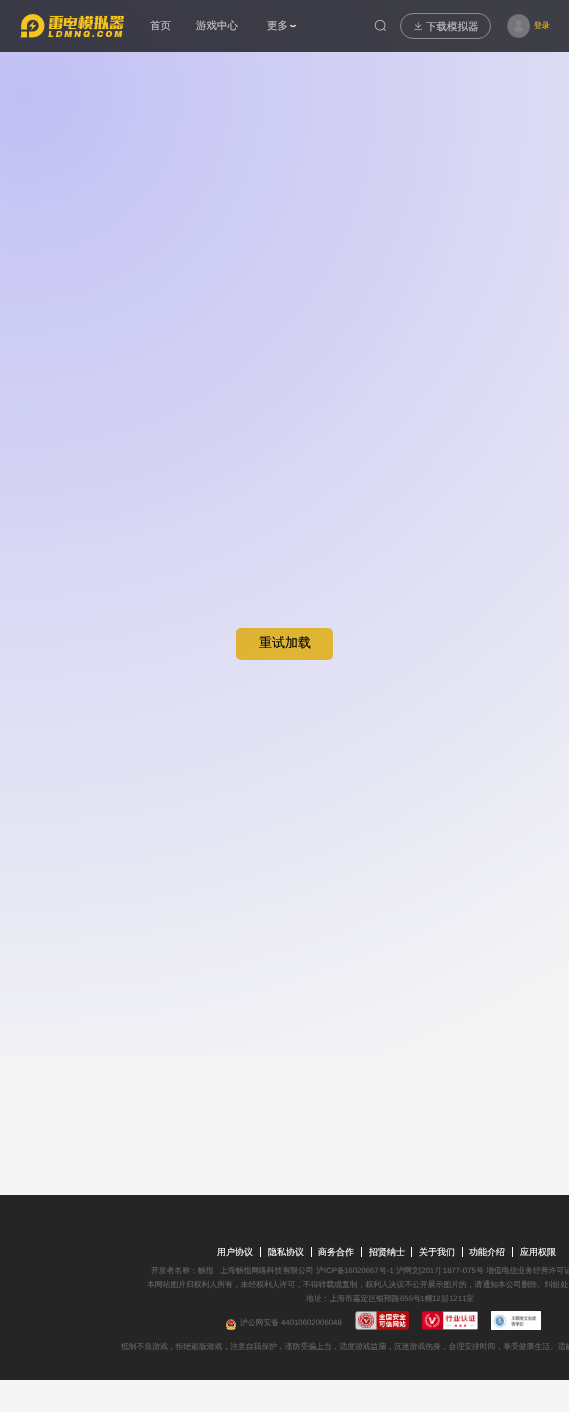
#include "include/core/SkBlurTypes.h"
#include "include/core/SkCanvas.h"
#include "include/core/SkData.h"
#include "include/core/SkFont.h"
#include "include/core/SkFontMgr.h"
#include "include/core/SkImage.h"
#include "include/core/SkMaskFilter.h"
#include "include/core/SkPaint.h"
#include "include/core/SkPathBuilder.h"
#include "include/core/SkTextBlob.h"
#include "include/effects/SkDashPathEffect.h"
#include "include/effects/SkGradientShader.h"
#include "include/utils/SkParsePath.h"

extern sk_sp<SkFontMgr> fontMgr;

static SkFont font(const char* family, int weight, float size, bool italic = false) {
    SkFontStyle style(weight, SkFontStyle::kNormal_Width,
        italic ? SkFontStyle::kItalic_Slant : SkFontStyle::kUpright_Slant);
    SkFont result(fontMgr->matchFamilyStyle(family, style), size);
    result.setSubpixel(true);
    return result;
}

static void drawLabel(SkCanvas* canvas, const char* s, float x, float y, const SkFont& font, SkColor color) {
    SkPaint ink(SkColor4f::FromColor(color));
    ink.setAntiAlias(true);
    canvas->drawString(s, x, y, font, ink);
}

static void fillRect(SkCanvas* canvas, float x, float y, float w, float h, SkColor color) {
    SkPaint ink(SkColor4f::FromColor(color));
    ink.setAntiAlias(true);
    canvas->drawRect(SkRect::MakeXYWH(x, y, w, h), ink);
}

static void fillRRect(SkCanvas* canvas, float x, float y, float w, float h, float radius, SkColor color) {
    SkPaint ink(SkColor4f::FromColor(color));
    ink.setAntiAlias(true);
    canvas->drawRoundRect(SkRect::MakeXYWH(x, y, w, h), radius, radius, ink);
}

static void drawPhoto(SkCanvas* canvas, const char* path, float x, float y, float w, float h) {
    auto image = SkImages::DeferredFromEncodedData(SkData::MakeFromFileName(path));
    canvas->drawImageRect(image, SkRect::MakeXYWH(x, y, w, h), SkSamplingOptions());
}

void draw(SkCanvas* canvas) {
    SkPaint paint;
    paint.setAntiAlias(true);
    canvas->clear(0xFFF5F5F5);
    fillRRect(canvas, 236, 628, 97, 32, 5, 0xFFF4C51C);
    {
        const SkColor colors[] = {0x402A23F1, 0x002A23F1};
        const float stops[] = {0, 1};
        paint.setShader(SkGradientShader::MakeRadial({24, 95}, 1049, colors, stops, 2, SkTileMode::kClamp));
        paint.setAlpha(255);
    }
    canvas->drawRect(SkRect::MakeXYWH(0, 0, 569, 1057), paint);
    fillRect(canvas, 0, 0, 569, 52, 0xCC17171A);
    drawPhoto(canvas, "assets/img1.png", 20, 14, 104, 24);
    SkFont font1 = font("WenQuanYi Zen Hei", 500, 10.5f);
    drawLabel(canvas, "首页", 150, 29, font1, 0xFFC5C5C7);
    drawLabel(canvas, "游戏中心", 196, 29, font1, 0xFFC5C5C7);
    drawLabel(canvas, "更多", 267, 29, font1, 0xFFC5C5C7);
    drawPhoto(canvas, "assets/img2.png", 290, 24, 6, 4);
    drawPhoto(canvas, "assets/img3.png", 374, 20, 12, 11);
    paint.setStroke(true);
    paint.setStrokeWidth(1);
    paint.setShader(nullptr);
    paint.setColor(0xFF8B8B90);
    canvas->drawRoundRect(SkRect::MakeXYWH(400.5f, 13.5f, 90, 25), 12.5f, 12.5f, paint);
    drawPhoto(canvas, "assets/img4.png", 414, 22, 8, 8);
    drawLabel(canvas, "下载模拟器", 426, 30, font1, 0xFFC5C5C7);
    fillRRect(canvas, 507, 14, 23, 24, 11.5f, 0xFF5B5B62);
    drawPhoto(canvas, "assets/img5.png", 507, 14, 23, 24);
    SkFont font2 = font("WenQuanYi Zen Hei", 500, 7.8f);
    drawLabel(canvas, "登录", 534, 28, font2, 0xFFF4C51F);
    SkFont font3 = font("WenQuanYi Zen Hei", 500, 13);
    drawLabel(canvas, "重试加载", 259, 647, font3, 0xFF000000);
    fillRect(canvas, 0, 1195, 569, 185, 0xFF252525);
    fillRect(canvas, 260, 1247, 1, 10, 0xFFFFFFFF);
    SkFont font4 = font("WenQuanYi Zen Hei", 500, 9);
    drawLabel(canvas, "用户协议", 217, 1255, font4, 0xFFFFFFFF);
    fillRect(canvas, 311, 1247, 1, 10, 0xFFFFFFFF);
    drawLabel(canvas, "隐私协议", 268, 1255, font4, 0xFFFFFFFF);
    fillRect(canvas, 361, 1247, 1, 10, 0xFFFFFFFF);
    drawLabel(canvas, "商务合作", 318, 1255, font4, 0xFFFFFFFF);
    fillRect(canvas, 411, 1247, 1, 10, 0xFFFFFFFF);
    drawLabel(canvas, "招贤纳士", 369, 1255, font4, 0xFFFFFFFF);
    fillRect(canvas, 462, 1247, 1, 10, 0xFFFFFFFF);
    drawLabel(canvas, "关于我们", 419, 1255, font4, 0xFFFFFFFF);
    fillRect(canvas, 512, 1247, 1, 10, 0xFFFFFFFF);
    drawLabel(canvas, "功能介绍", 469, 1255, font4, 0xFFFFFFFF);
    drawLabel(canvas, "应用权限", 520, 1255, font4, 0xFFFFFFFF);
    drawLabel(canvas, "开发者名称：畅指", 151, 1273, font2, 0xFF666666);
    drawLabel(canvas, "上海畅指网络科技有限公司 沪", 220, 1273, font2, 0xFF666666);
    SkFont font5 = font("Liberation Sans", 400, 7.8f);
    drawLabel(canvas, "ICP", 324, 1273, font5, 0xFF666666);
    drawLabel(canvas, "备", 337, 1273, font2, 0xFF666666);
    drawLabel(canvas, "16020667", 344, 1273, font5, 0xFF666666);
    drawLabel(canvas, "号", 379, 1273, font2, 0xFF666666);
    drawLabel(canvas, "-1", 387, 1273, font5, 0xFF666666);
    drawLabel(canvas, "沪网文", 396, 1273, font2, 0xFF666666);
    drawLabel(canvas, "[2017] 1877-075", 419, 1273, font5, 0xFF666666);
    drawLabel(canvas, "号 增值电信业务经营许可证", 476, 1273, font2, 0xFF666666);
    drawLabel(canvas, "本网站图片归权利人所有，未经权利人许可，不得转载或复制，权利人决议不公开展示图片的，请通知本公司删除。纠纷处", 147, 1287, font2, 0xFF666666);
    drawLabel(canvas, "地址：上海市嘉定区银翔路", 306, 1301, font2, 0xFF666666);
    drawLabel(canvas, "655", 400, 1301, font5, 0xFF666666);
    drawLabel(canvas, "号", 413, 1301, font2, 0xFF666666);
    drawLabel(canvas, "1", 420, 1301, font5, 0xFF666666);
    drawLabel(canvas, "幢", 425, 1301, font2, 0xFF666666);
    drawLabel(canvas, "12", 432, 1301, font5, 0xFF666666);
    drawLabel(canvas, "层", 441, 1301, font2, 0xFF666666);
    drawLabel(canvas, "1211", 449, 1301, font5, 0xFF666666);
    drawLabel(canvas, "室", 466, 1301, font2, 0xFF666666);
    drawPhoto(canvas, "assets/img6.png", 226, 1319, 10, 11);
    drawLabel(canvas, "沪公网安备", 240, 1325, font2, 0xFF666666);
    drawLabel(canvas, "44010602006048", 281, 1325, font5, 0xFF666666);
    drawPhoto(canvas, "assets/img7.png", 355, 1311, 54, 19);
    drawPhoto(canvas, "assets/img8.png", 422, 1311, 56, 19);
    drawPhoto(canvas, "assets/img9.png", 491, 1311, 50, 19);
    drawLabel(canvas, "抵制不良游戏，拒绝盗版游戏，注意自我保护，谨防受骗上当，适度游戏益脑，沉迷游戏伤身，合理安排时间，享受健康生活。适龄", 121, 1349, font2, 0xFF666666);
}
